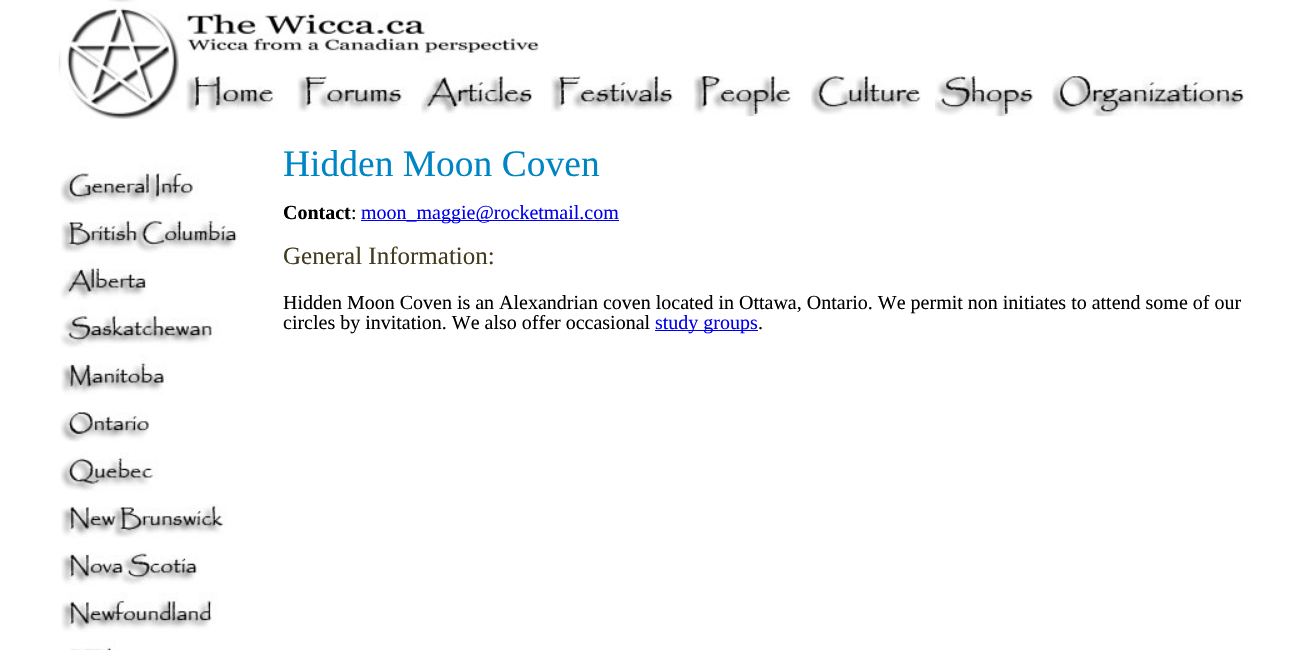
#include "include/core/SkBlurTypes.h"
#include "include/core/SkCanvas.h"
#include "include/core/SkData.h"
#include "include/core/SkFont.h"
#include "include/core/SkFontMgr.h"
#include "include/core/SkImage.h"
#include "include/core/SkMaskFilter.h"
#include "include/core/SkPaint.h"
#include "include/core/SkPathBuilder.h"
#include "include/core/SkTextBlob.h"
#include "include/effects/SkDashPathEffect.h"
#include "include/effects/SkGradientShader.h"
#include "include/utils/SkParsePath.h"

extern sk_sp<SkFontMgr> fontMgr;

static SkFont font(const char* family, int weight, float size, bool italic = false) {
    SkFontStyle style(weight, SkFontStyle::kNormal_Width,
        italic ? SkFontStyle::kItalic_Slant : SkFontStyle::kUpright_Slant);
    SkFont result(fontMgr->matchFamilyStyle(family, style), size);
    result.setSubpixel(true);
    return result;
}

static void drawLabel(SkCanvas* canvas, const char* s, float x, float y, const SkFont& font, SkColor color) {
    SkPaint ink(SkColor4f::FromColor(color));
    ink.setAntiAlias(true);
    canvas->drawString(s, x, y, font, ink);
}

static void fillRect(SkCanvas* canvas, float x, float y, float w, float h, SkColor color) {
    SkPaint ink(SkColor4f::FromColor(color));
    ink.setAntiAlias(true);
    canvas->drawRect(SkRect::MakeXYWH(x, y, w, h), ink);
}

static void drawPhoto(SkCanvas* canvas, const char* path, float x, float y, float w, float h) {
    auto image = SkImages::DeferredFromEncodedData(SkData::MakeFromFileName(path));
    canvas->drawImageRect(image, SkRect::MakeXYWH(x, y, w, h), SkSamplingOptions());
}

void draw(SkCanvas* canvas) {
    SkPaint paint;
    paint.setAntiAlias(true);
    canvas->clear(0xFFFFFFFF);
    drawPhoto(canvas, "assets/img1.png", 58, 0, 121, 119);
    drawPhoto(canvas, "assets/img2.png", 178, 12, 361, 49);
    drawPhoto(canvas, "assets/img3.png", 186, 76, 90, 37);
    drawPhoto(canvas, "assets/img4.png", 297, 76, 110, 36);
    drawPhoto(canvas, "assets/img5.png", 421, 76, 111, 38);
    drawPhoto(canvas, "assets/img6.png", 551, 76, 129, 36);
    drawPhoto(canvas, "assets/img7.png", 693, 76, 101, 41);
    drawPhoto(canvas, "assets/img8.png", 811, 76, 110, 39);
    drawPhoto(canvas, "assets/img9.png", 935, 76, 100, 41);
    drawPhoto(canvas, "assets/img10.png", 1052, 76, 199, 41);
    drawPhoto(canvas, "assets/img11.png", 60, 165, 139, 40);
    drawPhoto(canvas, "assets/img12.png", 61, 212, 178, 41);
    drawPhoto(canvas, "assets/img13.png", 60, 260, 88, 40);
    drawPhoto(canvas, "assets/img14.png", 60, 307, 159, 41);
    drawPhoto(canvas, "assets/img15.png", 61, 355, 106, 40);
    drawPhoto(canvas, "assets/img16.png", 60, 412, 89, 30);
    drawPhoto(canvas, "assets/img17.png", 60, 452, 99, 40);
    drawPhoto(canvas, "assets/img18.png", 61, 504, 166, 34);
    drawPhoto(canvas, "assets/img19.png", 61, 550, 138, 35);
    drawPhoto(canvas, "assets/img20.png", 61, 592, 157, 40);
    drawPhoto(canvas, "assets/img21.png", 70, 640, 46, 10);
    SkFont font1 = font("Liberation Serif", 400, 37.5f);
    drawLabel(canvas, "Hidden Moon Coven", 283, 176, font1, 0xFF0085C4);
    SkFont font2 = font("Liberation Serif", 700, 20);
    drawLabel(canvas, "Contact", 283, 219, font2, 0xFF000000);
    SkFont font3 = font("Liberation Serif", 400, 20);
    drawLabel(canvas, ":", 351, 219, font3, 0xFF000000);
    fillRect(canvas, 361, 220, 258, 1, 0xFF0000EE);
    drawLabel(canvas, "moon_maggie@rocketmail.com", 361, 219, font3, 0xFF0000EE);
    SkFont font4 = font("Liberation Serif", 400, 25);
    drawLabel(canvas, "General Information:", 283, 264, font4, 0xFF433C1E);
    drawLabel(canvas, "Hidden Moon Coven is an Alexandrian coven located in Ottawa, Ontario. We permit non initiates to attend some of our", 283, 309, font3, 0xFF000000);
    drawLabel(canvas, "circles by invitation. We also offer occasional", 283, 329, font3, 0xFF000000);
    fillRect(canvas, 655, 330, 103, 1, 0xFF0000EE);
    drawLabel(canvas, "study groups", 655, 329, font3, 0xFF0000EE);
    drawLabel(canvas, ".", 758, 329, font3, 0xFF000000);
}
